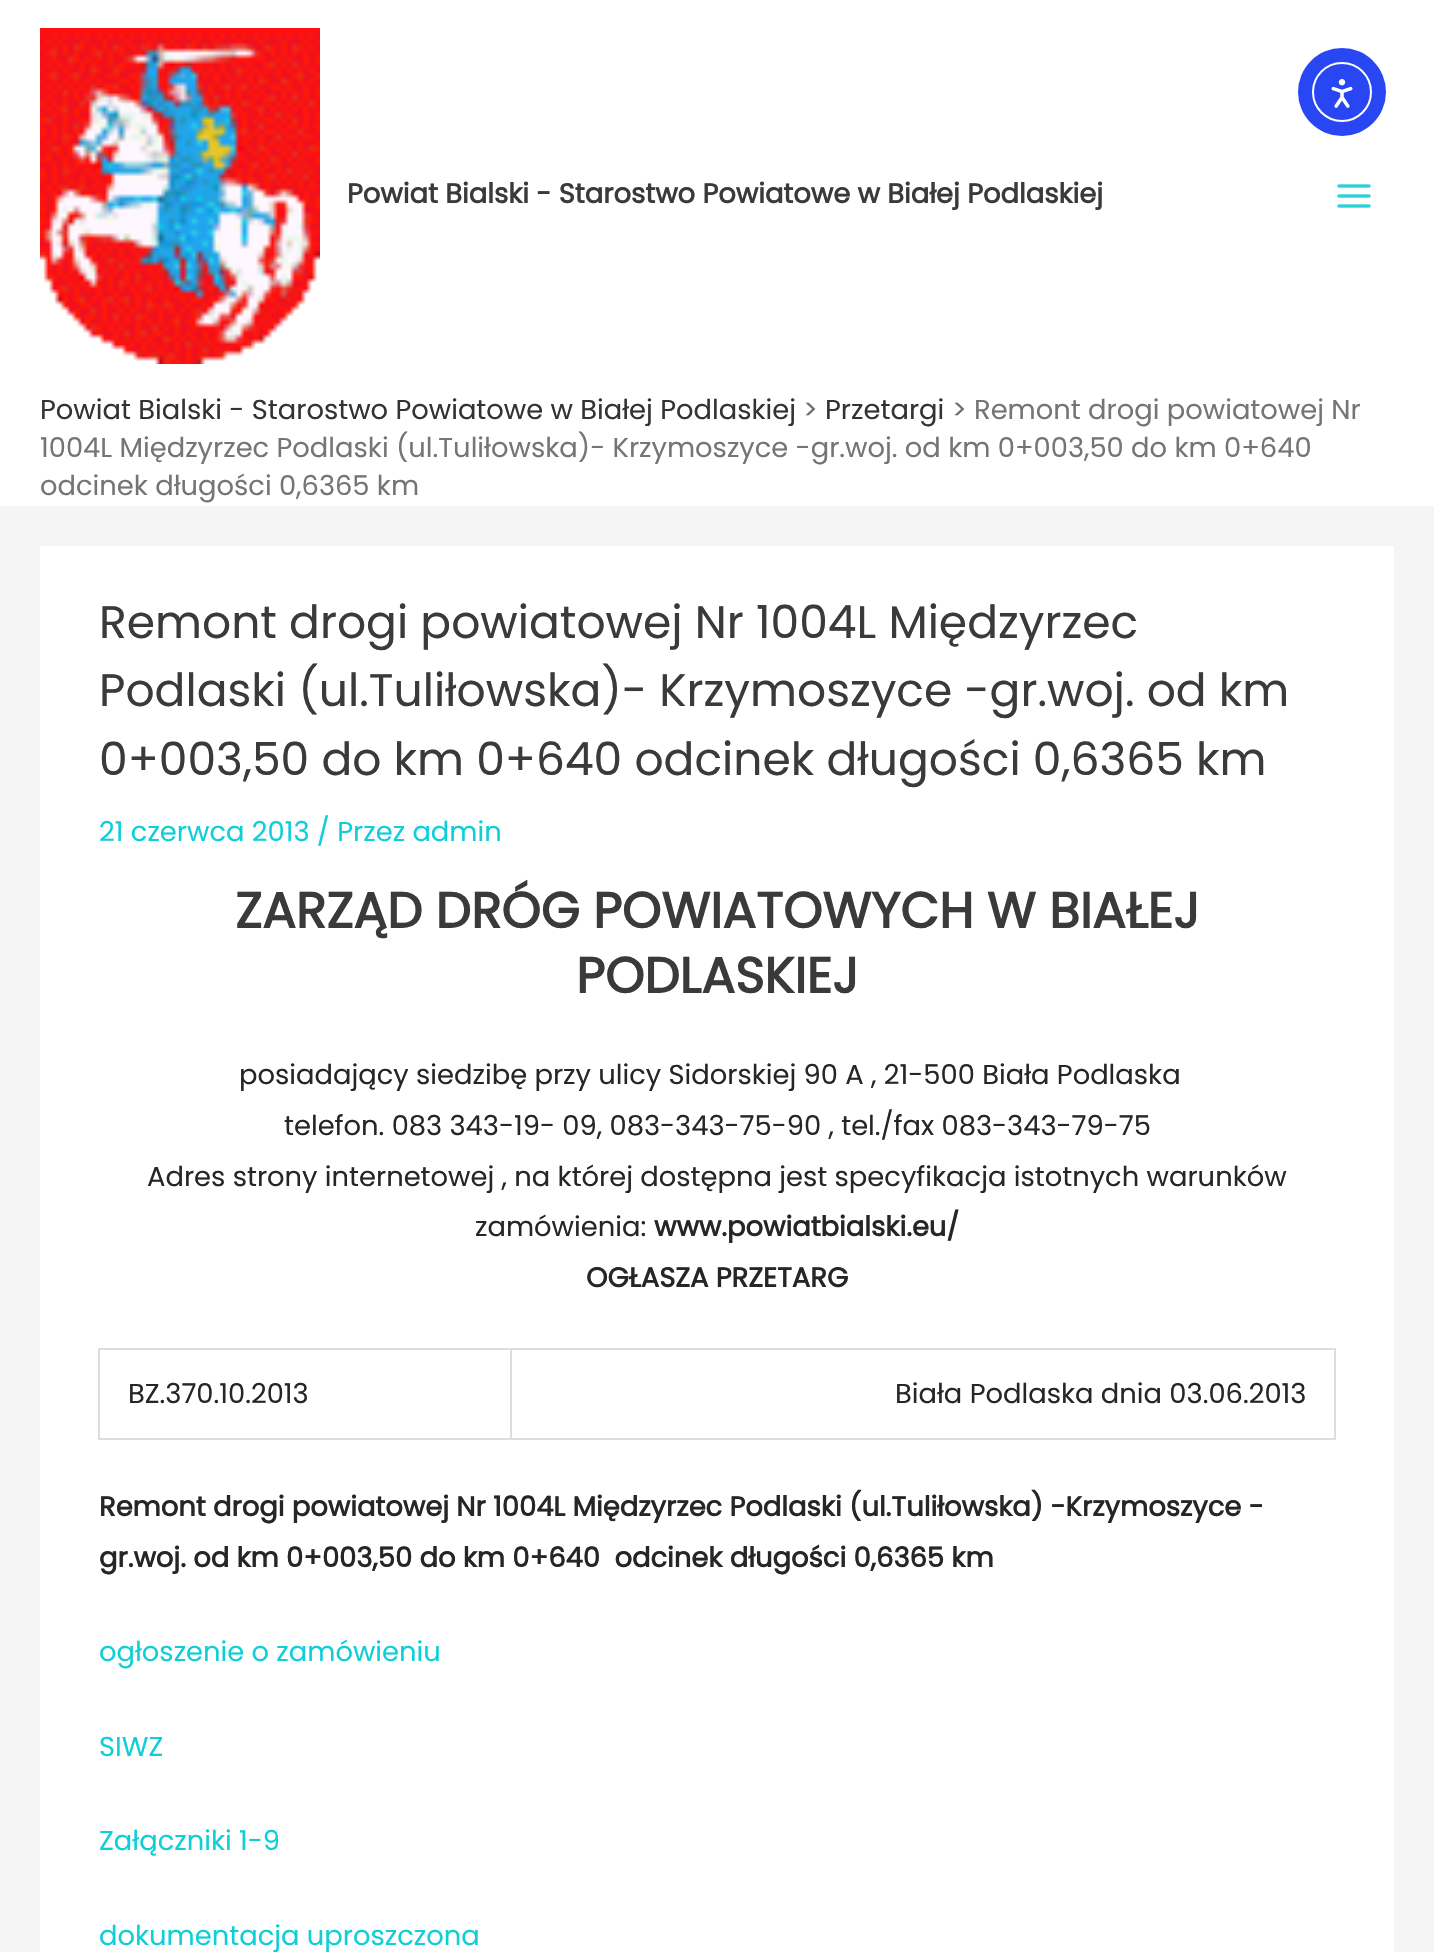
#include "include/core/SkBlurTypes.h"
#include "include/core/SkCanvas.h"
#include "include/core/SkData.h"
#include "include/core/SkFont.h"
#include "include/core/SkFontMgr.h"
#include "include/core/SkImage.h"
#include "include/core/SkMaskFilter.h"
#include "include/core/SkPaint.h"
#include "include/core/SkPathBuilder.h"
#include "include/core/SkTextBlob.h"
#include "include/effects/SkDashPathEffect.h"
#include "include/effects/SkGradientShader.h"
#include "include/utils/SkParsePath.h"

extern sk_sp<SkFontMgr> fontMgr;

static SkFont font(const char* family, int weight, float size, bool italic = false) {
    SkFontStyle style(weight, SkFontStyle::kNormal_Width,
        italic ? SkFontStyle::kItalic_Slant : SkFontStyle::kUpright_Slant);
    SkFont result(fontMgr->matchFamilyStyle(family, style), size);
    result.setSubpixel(true);
    return result;
}

static void drawLabel(SkCanvas* canvas, const char* s, float x, float y, const SkFont& font, SkColor color) {
    SkPaint ink(SkColor4f::FromColor(color));
    ink.setAntiAlias(true);
    canvas->drawString(s, x, y, font, ink);
}

static void fillRect(SkCanvas* canvas, float x, float y, float w, float h, SkColor color) {
    SkPaint ink(SkColor4f::FromColor(color));
    ink.setAntiAlias(true);
    canvas->drawRect(SkRect::MakeXYWH(x, y, w, h), ink);
}

static void drawPhoto(SkCanvas* canvas, const char* path, float x, float y, float w, float h) {
    auto image = SkImages::DeferredFromEncodedData(SkData::MakeFromFileName(path));
    canvas->drawImageRect(image, SkRect::MakeXYWH(x, y, w, h), SkSamplingOptions());
}

void draw(SkCanvas* canvas) {
    SkPaint paint;
    paint.setAntiAlias(true);
    canvas->clear(0xFFF5F5F5);
    fillRect(canvas, 0, 0, 1434, 506, 0xFFFFFFFF);
    paint.setColor(0xFF2847F3);
    canvas->drawCircle(1342, 92, 44, paint);
    paint.setStroke(true);
    paint.setStrokeWidth(2);
    paint.setColor(0xFFFFFFFF);
    canvas->drawCircle(1342, 92, 29, paint);
    drawPhoto(canvas, "assets/img1.png", 1331, 79, 22, 29);
    drawPhoto(canvas, "assets/img2.png", 40, 28, 280, 336);
    SkFont font1 = font("Poppins", 700, 27.35f);
    drawLabel(canvas, "Powiat Bialski - Starostwo Powiatowe w Białej Podlaskiej", 347, 203, font1, 0xFF3A3A3A);
    drawPhoto(canvas, "assets/img3.png", 1337, 184, 34, 24);
    SkFont font2 = font("Poppins", 400, 27.35f);
    drawLabel(canvas, "Powiat Bialski - Starostwo Powiatowe w Białej Podlaskiej", 40, 419, font2, 0xFF333333);
    drawLabel(canvas, ">", 803, 419, font2, 0xFF6D6D6D);
    drawLabel(canvas, "Przetargi", 825, 419, font2, 0xFF333333);
    drawLabel(canvas, ">", 952, 419, font2, 0xFF6D6D6D);
    drawLabel(canvas, "Remont drogi powiatowej Nr", 974, 419, font2, 0xFF757575);
    drawLabel(canvas, "1004L Międzyrzec Podlaski (ul.Tuliłowska)- Krzymoszyce -gr.woj. od km 0+003,50 do km 0+640", 40, 457, font2, 0xFF757575);
    drawLabel(canvas, "odcinek długości 0,6365 km", 40, 495, font2, 0xFF757575);
    fillRect(canvas, 40, 546, 1354, 1406, 0xFFFFFFFF);
    SkFont font3 = font("Poppins", 400, 45.6f);
    drawLabel(canvas, "Remont drogi powiatowej Nr 1004L Międzyrzec", 99, 638, font3, 0xFF3A3A3A);
    drawLabel(canvas, "Podlaski (ul.Tuliłowska)- Krzymoszyce -gr.woj. od km", 99, 706, font3, 0xFF3A3A3A);
    drawLabel(canvas, "0+003,50 do km 0+640 odcinek długości 0,6365 km", 99, 775, font3, 0xFF3A3A3A);
    drawLabel(canvas, "21 czerwca 2013 / Przez admin", 99, 841, font2, 0xFF0FCED8);
    SkFont font4 = font("Poppins", 700, 50);
    drawLabel(canvas, "ZARZĄD DRÓG POWIATOWYCH W BIAŁEJ", 235, 928, font4, 0xFF3A3A3A);
    drawLabel(canvas, "PODLASKIEJ", 576, 993, font4, 0xFF3A3A3A);
    drawLabel(canvas, "posiadający siedzibę przy ulicy Sidorskiej 90 A , 21-500 Biała Podlaska", 239, 1084, font2, 0xFF262626);
    drawLabel(canvas, "telefon. 083 343-19- 09, 083-343-75-90 , tel./fax 083-343-79-75", 284, 1135, font2, 0xFF262626);
    drawLabel(canvas, "Adres strony internetowej , na której dostępna jest specyfikacja istotnych warunków", 147, 1186, font2, 0xFF262626);
    drawLabel(canvas, "zamówienia:", 475, 1236, font2, 0xFF262626);
    drawLabel(canvas, "www.powiatbialski.eu/", 654, 1236, font1, 0xFF262626);
    drawLabel(canvas, "OGŁASZA PRZETARG", 586, 1287, font1, 0xFF262626);
    fillRect(canvas, 98, 1348, 1238, 2, 0xFFDDDDDD);
    fillRect(canvas, 98, 1348, 2, 92, 0xFFDDDDDD);
    fillRect(canvas, 510, 1350, 2, 90, 0xFFDDDDDD);
    fillRect(canvas, 100, 1438, 412, 2, 0xFFDDDDDD);
    drawLabel(canvas, "BZ.370.10.2013", 128, 1403, font2, 0xFF262626);
    fillRect(canvas, 1334, 1350, 2, 90, 0xFFDDDDDD);
    fillRect(canvas, 512, 1438, 824, 2, 0xFFDDDDDD);
    drawLabel(canvas, "Biała Podlaska dnia 03.06.2013", 895, 1403, font2, 0xFF262626);
    drawLabel(canvas, "Remont drogi powiatowej Nr 1004L Międzyrzec Podlaski (ul.Tuliłowska) -Krzymoszyce -", 99, 1516, font1, 0xFF262626);
    drawLabel(canvas, "gr.woj. od km 0+003,50 do km 0+640  odcinek długości 0,6365 km", 99, 1567, font1, 0xFF262626);
    drawLabel(canvas, "ogłoszenie o zamówieniu", 99, 1661, font2, 0xFF0FCED8);
    drawLabel(canvas, "SIWZ", 99, 1756, font2, 0xFF0FCED8);
    drawLabel(canvas, "Załączniki 1-9", 99, 1850, font2, 0xFF0FCED8);
    drawLabel(canvas, "dokumentacja uproszczona", 99, 1945, font2, 0xFF0FCED8);
}
